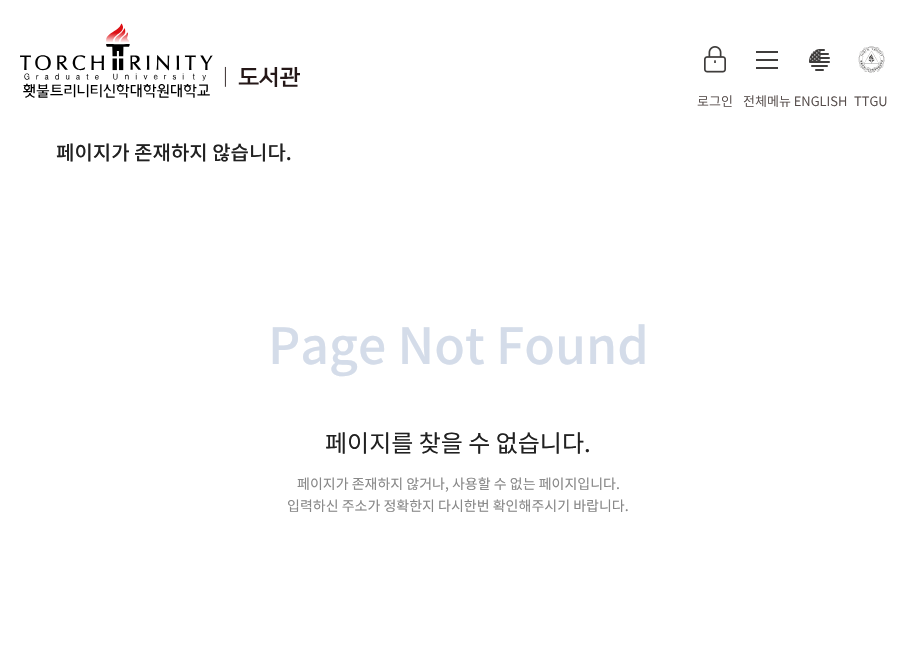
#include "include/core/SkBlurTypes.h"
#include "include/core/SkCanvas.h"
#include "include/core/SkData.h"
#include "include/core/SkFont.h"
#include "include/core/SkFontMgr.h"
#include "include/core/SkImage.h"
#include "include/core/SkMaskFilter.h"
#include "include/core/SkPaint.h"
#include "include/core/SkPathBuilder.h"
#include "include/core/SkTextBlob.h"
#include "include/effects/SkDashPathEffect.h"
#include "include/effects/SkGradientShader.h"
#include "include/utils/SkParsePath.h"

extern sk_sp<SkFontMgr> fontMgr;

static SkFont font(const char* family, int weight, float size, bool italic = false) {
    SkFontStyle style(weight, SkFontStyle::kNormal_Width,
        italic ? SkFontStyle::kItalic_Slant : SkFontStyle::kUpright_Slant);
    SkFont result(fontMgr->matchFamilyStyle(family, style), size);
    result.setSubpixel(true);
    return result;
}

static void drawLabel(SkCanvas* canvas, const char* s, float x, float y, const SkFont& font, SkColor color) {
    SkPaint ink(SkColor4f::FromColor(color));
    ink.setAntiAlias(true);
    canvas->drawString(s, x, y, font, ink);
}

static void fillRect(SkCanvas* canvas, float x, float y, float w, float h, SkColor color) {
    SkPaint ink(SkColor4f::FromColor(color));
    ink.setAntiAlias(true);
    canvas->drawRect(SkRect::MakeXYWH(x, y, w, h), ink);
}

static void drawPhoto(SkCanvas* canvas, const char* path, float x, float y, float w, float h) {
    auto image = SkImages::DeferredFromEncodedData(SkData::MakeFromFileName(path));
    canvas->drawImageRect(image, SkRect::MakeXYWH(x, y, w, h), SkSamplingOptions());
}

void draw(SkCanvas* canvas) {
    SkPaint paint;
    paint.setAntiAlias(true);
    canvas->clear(0xFFFFFFFF);
    drawPhoto(canvas, "assets/img1.png", 20, 23, 280, 75);
    drawPhoto(canvas, "assets/img2.png", 809, 49, 21, 22);
    drawPhoto(canvas, "assets/img3.png", 704, 46, 22, 27);
    SkFont font1 = font("Noto Sans KR", 300, 13);
    drawLabel(canvas, "로그인", 697, 106, font1, 0xFF554C4A);
    fillRect(canvas, 756, 51, 22, 2, 0xFF3F3D3C);
    fillRect(canvas, 756, 67, 22, 2, 0xFF3F3D3C);
    fillRect(canvas, 756, 59, 22, 2, 0xFF3F3D3C);
    drawLabel(canvas, "전체메뉴 ENGLISH", 743, 106, font1, 0xFF554C4A);
    drawPhoto(canvas, "assets/img4.png", 858, 46, 27, 27);
    drawLabel(canvas, "TTGU", 854, 106, font1, 0xFF554C4A);
    SkFont font2 = font("Noto Sans KR", 500, 20);
    drawLabel(canvas, "페이지가 존재하지 않습니다.", 56, 160, font2, 0xFF212121);
    SkFont font3 = font("Noto Sans KR", 500, 50);
    drawLabel(canvas, "Page Not Found", 268, 364, font3, 0xFFD4DCE9);
    SkFont font4 = font("Noto Sans KR", 400, 24);
    drawLabel(canvas, "페이지를 찾을 수 없습니다.", 325, 452, font4, 0xFF212121);
    SkFont font5 = font("Noto Sans KR", 400, 14);
    drawLabel(canvas, "페이지가 존재하지 않거나, 사용할 수 없는 페이지입니다.", 297, 489, font5, 0xFF888888);
    drawLabel(canvas, "입력하신 주소가 정확한지 다시한번 확인해주시기 바랍니다.", 287, 511, font5, 0xFF888888);
}
